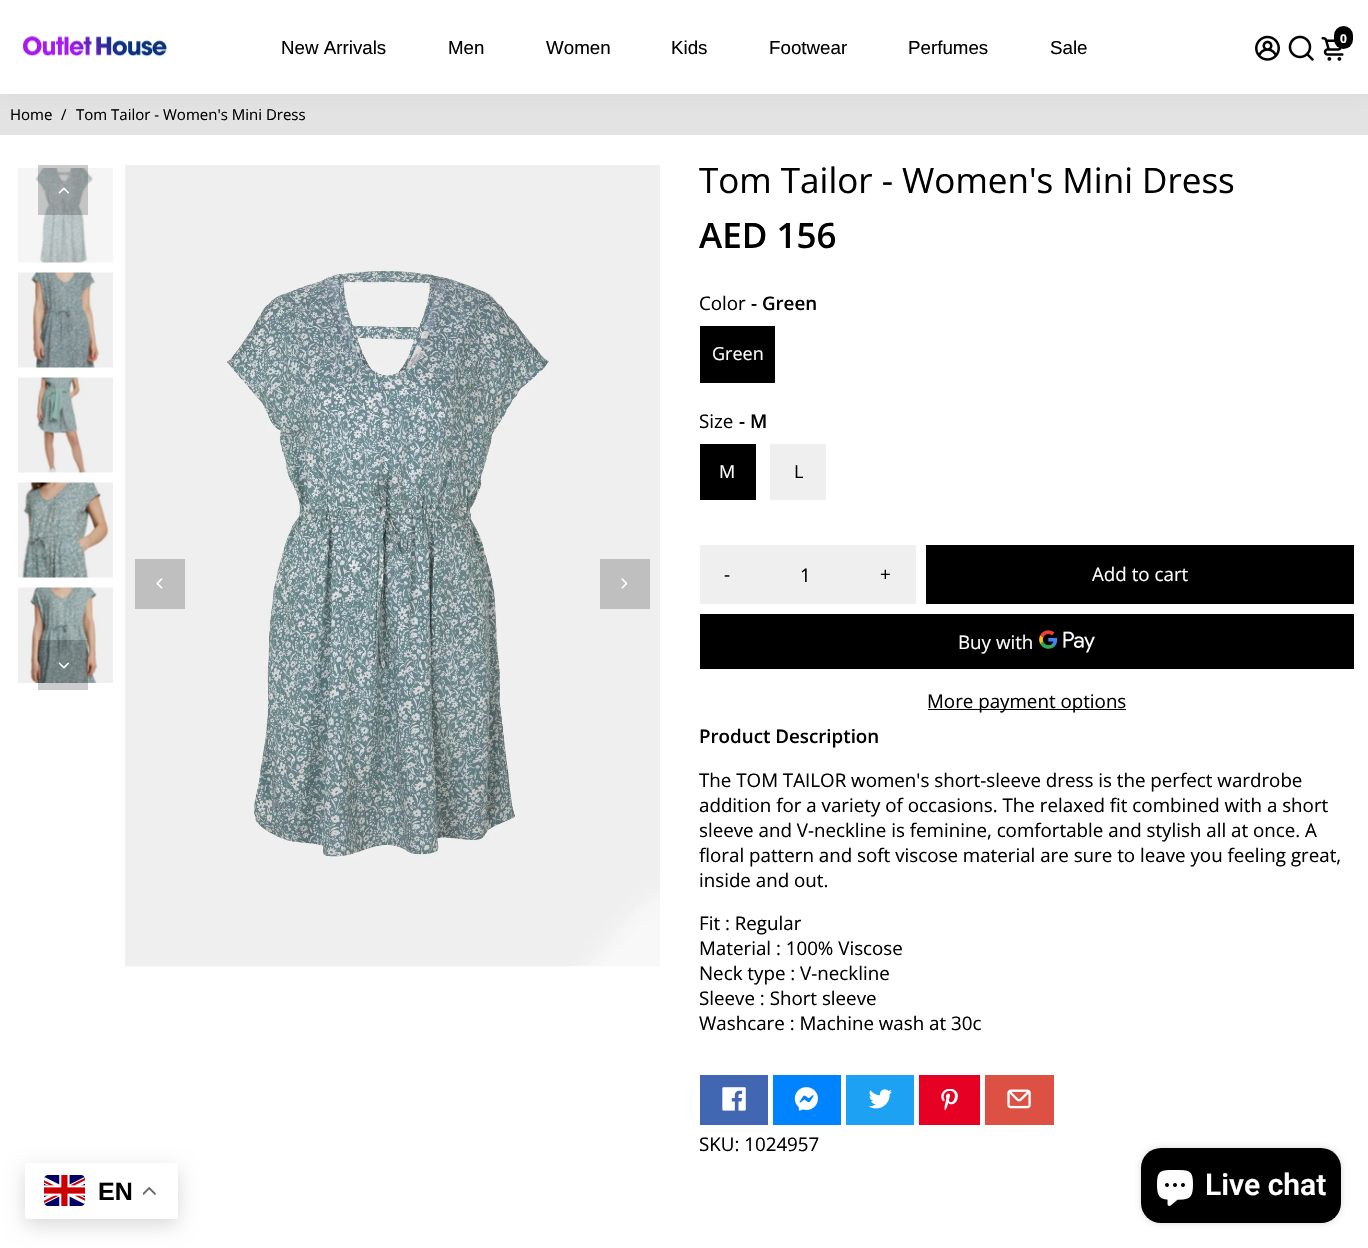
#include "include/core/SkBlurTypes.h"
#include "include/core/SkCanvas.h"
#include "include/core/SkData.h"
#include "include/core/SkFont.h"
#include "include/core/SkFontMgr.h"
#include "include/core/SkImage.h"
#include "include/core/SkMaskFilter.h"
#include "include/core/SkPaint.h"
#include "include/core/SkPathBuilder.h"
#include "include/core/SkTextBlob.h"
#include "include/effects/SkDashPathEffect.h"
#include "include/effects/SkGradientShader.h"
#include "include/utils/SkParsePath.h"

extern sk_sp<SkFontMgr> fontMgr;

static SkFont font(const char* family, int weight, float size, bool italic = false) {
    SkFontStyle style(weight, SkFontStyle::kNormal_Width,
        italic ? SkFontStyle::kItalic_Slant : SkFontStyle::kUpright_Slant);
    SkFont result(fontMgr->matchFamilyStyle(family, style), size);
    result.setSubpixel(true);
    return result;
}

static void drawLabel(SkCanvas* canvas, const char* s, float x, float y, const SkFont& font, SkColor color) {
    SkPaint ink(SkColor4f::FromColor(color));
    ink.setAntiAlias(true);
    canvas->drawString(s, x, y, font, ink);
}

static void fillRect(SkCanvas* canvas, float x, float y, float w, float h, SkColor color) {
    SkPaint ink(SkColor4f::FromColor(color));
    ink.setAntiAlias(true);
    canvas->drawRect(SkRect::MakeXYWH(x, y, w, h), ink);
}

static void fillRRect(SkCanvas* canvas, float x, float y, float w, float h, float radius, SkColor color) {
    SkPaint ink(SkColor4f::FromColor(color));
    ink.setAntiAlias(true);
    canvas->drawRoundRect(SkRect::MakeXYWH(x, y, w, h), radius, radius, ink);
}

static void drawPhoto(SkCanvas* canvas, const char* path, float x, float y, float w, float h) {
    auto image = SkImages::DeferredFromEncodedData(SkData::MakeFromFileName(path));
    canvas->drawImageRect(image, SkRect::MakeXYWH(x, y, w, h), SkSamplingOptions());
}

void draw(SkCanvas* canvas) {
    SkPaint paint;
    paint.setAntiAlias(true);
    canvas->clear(0xFFFFFFFF);
    fillRect(canvas, 0, 94, 1368, 41, 0xFFE4E4E4);
    paint.setColor(0x0F000000);
    paint.setMaskFilter(SkMaskFilter::MakeBlur(kNormal_SkBlurStyle, 12.5f));
    canvas->drawRect(SkRect::MakeXYWH(0, 0, 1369, 94), paint);
    paint.setMaskFilter(nullptr);
    fillRect(canvas, 0, 0, 1368, 94, 0xFFFFFFFF);
    drawPhoto(canvas, "assets/img1.png", 22, 36, 145, 21);
    SkFont font1 = font("Liberation Sans", 400, 18.75f);
    drawLabel(canvas, "New Arrivals", 281, 54, font1, 0xFF000000);
    drawLabel(canvas, "Men", 448, 54, font1, 0xFF000000);
    drawLabel(canvas, "Women", 546, 54, font1, 0xFF000000);
    drawLabel(canvas, "Kids", 671, 54, font1, 0xFF000000);
    drawLabel(canvas, "Footwear", 769, 54, font1, 0xFF000000);
    drawLabel(canvas, "Perfumes", 908, 54, font1, 0xFF000000);
    drawLabel(canvas, "Sale", 1050, 54, font1, 0xFF000000);
    drawPhoto(canvas, "assets/img2.png", 1255, 35, 25, 26);
    drawPhoto(canvas, "assets/img3.png", 1288, 35, 26, 26);
    drawPhoto(canvas, "assets/img4.png", 1321, 37, 23, 24);
    fillRRect(canvas, 1334, 26, 19, 23, 9.5f, 0xFF000000);
    SkFont font2 = font("Open Sans", 700, 12);
    drawLabel(canvas, "0", 1340, 43, font2, 0xFFFFFFFF);
    SkFont font3 = font("Open Sans", 400, 15);
    drawLabel(canvas, "Home", 10, 120, font3, 0xFF000000);
    drawLabel(canvas, "/", 61, 120, font3, 0xFF000000);
    drawLabel(canvas, "Tom Tailor - Women's Mini Dress", 76, 120, font3, 0xFF000000);
    drawPhoto(canvas, "assets/img9.png", 18, 168, 95, 95);
    fillRect(canvas, 38, 165, 50, 50, 0x33000000);
    drawPhoto(canvas, "assets/img5.png", 58, 187, 11, 7);
    drawPhoto(canvas, "assets/img6.png", 125, 165, 535, 802);
    fillRect(canvas, 135, 559, 50, 50, 0xFFBFBFBF);
    drawPhoto(canvas, "assets/img7.png", 156, 578, 7, 11);
    fillRect(canvas, 600, 559, 50, 50, 0xFFBFBFBF);
    drawPhoto(canvas, "assets/img8.png", 621, 578, 7, 11);
    drawPhoto(canvas, "assets/img10.png", 18, 272, 95, 96);
    drawPhoto(canvas, "assets/img11.png", 18, 377, 95, 96);
    drawPhoto(canvas, "assets/img12.png", 18, 482, 95, 96);
    drawPhoto(canvas, "assets/img13.png", 18, 587, 95, 96);
    fillRect(canvas, 38, 640, 50, 50, 0x33000000);
    drawPhoto(canvas, "assets/img14.png", 58, 662, 11, 7);
    SkFont font4 = font("Open Sans", 400, 35);
    drawLabel(canvas, "Tom Tailor - Women's Mini Dress", 699, 193, font4, 0xFF000000);
    SkFont font5 = font("Open Sans", 600, 35);
    drawLabel(canvas, "AED 156", 699, 248, font5, 0xFF000000);
    SkFont font6 = font("Open Sans", 400, 18.75f);
    drawLabel(canvas, "Color", 699, 310, font6, 0xFF000000);
    SkFont font7 = font("Open Sans", 600, 18.75f);
    drawLabel(canvas, "- Green", 751, 310, font7, 0xFF000000);
    fillRect(canvas, 700, 326, 75, 57, 0xFF000000);
    SkFont font8 = font("Open Sans", 400, 18);
    drawLabel(canvas, "Green", 712, 360, font8, 0xFFFFFFFF);
    drawLabel(canvas, "Size", 699, 428, font6, 0xFF000000);
    drawLabel(canvas, "- M", 739, 428, font7, 0xFF000000);
    fillRect(canvas, 700, 444, 56, 56, 0xFF000000);
    drawLabel(canvas, "M", 719, 478, font8, 0xFFFFFFFF);
    fillRect(canvas, 770, 444, 56, 56, 0xFFEFEFEF);
    drawLabel(canvas, "L", 794, 478, font8, 0xFF000000);
    fillRect(canvas, 700, 545, 216, 59, 0xFFEFEFEF);
    drawLabel(canvas, "-", 724, 581, font6, 0xFF000000);
    drawLabel(canvas, "1", 800, 582, font6, 0xFF000000);
    drawLabel(canvas, "+", 880, 581, font6, 0xFF000000);
    fillRect(canvas, 926, 545, 428, 59, 0xFF000000);
    drawLabel(canvas, "Add to cart", 1092, 581, font6, 0xFFFFFFFF);
    fillRect(canvas, 700, 614, 654, 55, 0xFF000000);
    drawLabel(canvas, "Buy with", 958, 649, font6, 0xFFFFFFFF);
    drawPhoto(canvas, "assets/img15.png", 1039, 630, 56, 23);
    fillRect(canvas, 928, 709, 198, 1, 0xFF000000);
    drawLabel(canvas, "More payment options", 927, 708, font6, 0xFF000000);
    drawLabel(canvas, "Product Description", 699, 743, font7, 0xFF000000);
    drawLabel(canvas, "The TOM TAILOR women's short-sleeve dress is the perfect wardrobe", 699, 787, font6, 0xFF000000);
    drawLabel(canvas, "addition for a variety of occasions. The relaxed fit combined with a short", 699, 812, font6, 0xFF000000);
    drawLabel(canvas, "sleeve and V-neckline is feminine, comfortable and stylish all at once. A", 699, 837, font6, 0xFF000000);
    drawLabel(canvas, "floral pattern and soft viscose material are sure to leave you feeling great,", 699, 862, font6, 0xFF000000);
    drawLabel(canvas, "inside and out.", 699, 887, font6, 0xFF000000);
    drawLabel(canvas, "Fit : Regular", 699, 930, font6, 0xFF000000);
    drawLabel(canvas, "Material : 100% Viscose", 699, 955, font6, 0xFF000000);
    drawLabel(canvas, "Neck type : V-neckline", 699, 980, font6, 0xFF000000);
    drawLabel(canvas, "Sleeve : Short sleeve", 699, 1005, font6, 0xFF000000);
    drawLabel(canvas, "Washcare : Machine wash at 30c", 699, 1030, font6, 0xFF000000);
    fillRect(canvas, 700, 1075, 68, 50, 0xFF4267B2);
    drawPhoto(canvas, "assets/img16.png", 722, 1087, 24, 24);
    fillRect(canvas, 773, 1075, 68, 50, 0xFF0083FF);
    drawPhoto(canvas, "assets/img17.png", 794, 1087, 24, 24);
    fillRect(canvas, 846, 1075, 68, 50, 0xFF1DA1F2);
    drawPhoto(canvas, "assets/img18.png", 868, 1089, 24, 20);
    fillRect(canvas, 919, 1075, 61, 50, 0xFFE60023);
    drawPhoto(canvas, "assets/img19.png", 941, 1089, 17, 22);
    fillRect(canvas, 985, 1075, 69, 50, 0xFFDD5044);
    drawPhoto(canvas, "assets/img20.png", 1007, 1089, 24, 20);
    drawLabel(canvas, "SKU: 1024957", 699, 1151, font6, 0xFF000000);
    paint.setColor(0x26000000);
    paint.setMaskFilter(SkMaskFilter::MakeBlur(kNormal_SkBlurStyle, 9.5f));
    canvas->drawRoundRect(SkRect::MakeXYWH(25, 1169, 153, 56), 2.5f, 2.5f, paint);
    paint.setMaskFilter(nullptr);
    fillRRect(canvas, 25, 1163, 153, 56, 2.5f, 0xFFFFFFFF);
    drawPhoto(canvas, "assets/img21.png", 44, 1175, 41, 31);
    SkFont font9 = font("Liberation Sans", 700, 25);
    drawLabel(canvas, "EN", 98, 1200, font9, 0xFF000000);
    drawPhoto(canvas, "assets/img22.png", 143, 1187, 13, 8);
    paint.setMaskFilter(SkMaskFilter::MakeBlur(kNormal_SkBlurStyle, 3));
    canvas->drawRoundRect(SkRect::MakeXYWH(1141, 1148, 200, 75), 20, 20, paint);
    paint.setMaskFilter(nullptr);
    fillRRect(canvas, 1141, 1148, 200, 75, 20, 0xFF000000);
    drawPhoto(canvas, "assets/img23.png", 1157, 1170, 36, 36);
    SkFont font10 = font("Roboto", 600, 30);
    drawLabel(canvas, "Live chat", 1205, 1195, font10, 0xFFFFFFFF);
}
